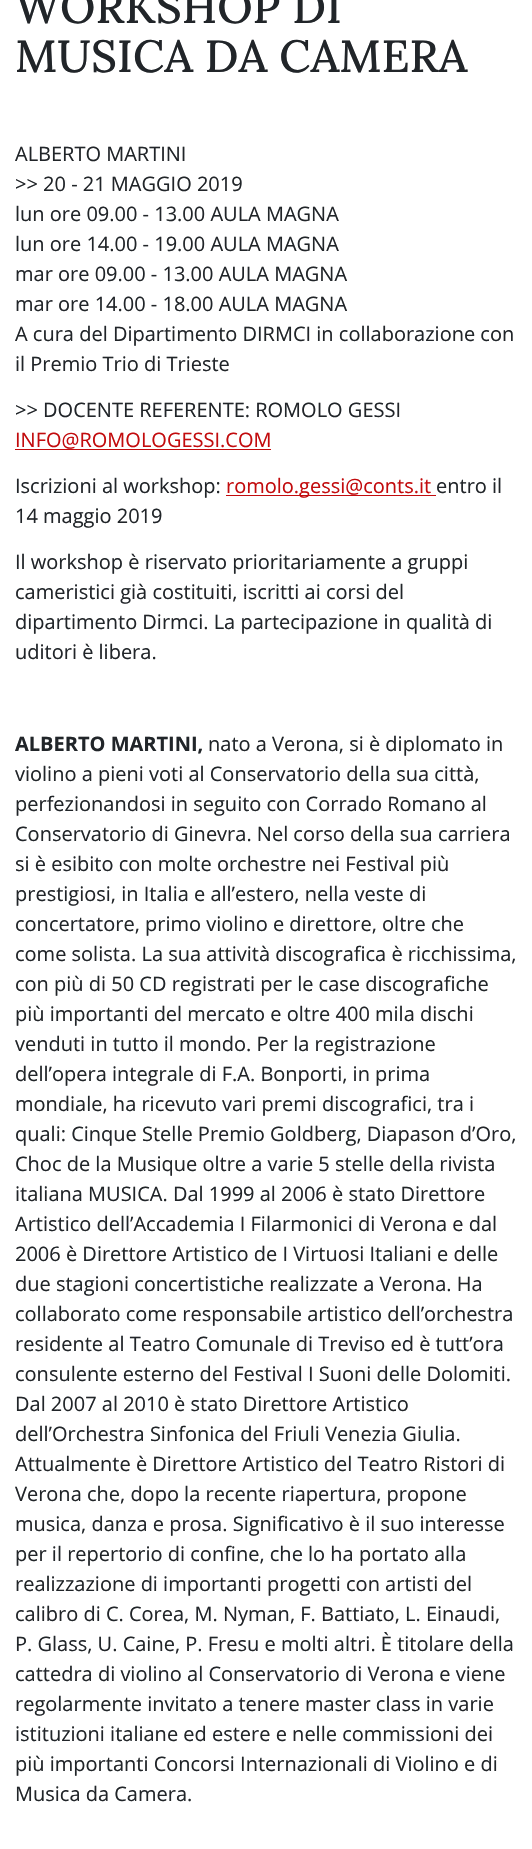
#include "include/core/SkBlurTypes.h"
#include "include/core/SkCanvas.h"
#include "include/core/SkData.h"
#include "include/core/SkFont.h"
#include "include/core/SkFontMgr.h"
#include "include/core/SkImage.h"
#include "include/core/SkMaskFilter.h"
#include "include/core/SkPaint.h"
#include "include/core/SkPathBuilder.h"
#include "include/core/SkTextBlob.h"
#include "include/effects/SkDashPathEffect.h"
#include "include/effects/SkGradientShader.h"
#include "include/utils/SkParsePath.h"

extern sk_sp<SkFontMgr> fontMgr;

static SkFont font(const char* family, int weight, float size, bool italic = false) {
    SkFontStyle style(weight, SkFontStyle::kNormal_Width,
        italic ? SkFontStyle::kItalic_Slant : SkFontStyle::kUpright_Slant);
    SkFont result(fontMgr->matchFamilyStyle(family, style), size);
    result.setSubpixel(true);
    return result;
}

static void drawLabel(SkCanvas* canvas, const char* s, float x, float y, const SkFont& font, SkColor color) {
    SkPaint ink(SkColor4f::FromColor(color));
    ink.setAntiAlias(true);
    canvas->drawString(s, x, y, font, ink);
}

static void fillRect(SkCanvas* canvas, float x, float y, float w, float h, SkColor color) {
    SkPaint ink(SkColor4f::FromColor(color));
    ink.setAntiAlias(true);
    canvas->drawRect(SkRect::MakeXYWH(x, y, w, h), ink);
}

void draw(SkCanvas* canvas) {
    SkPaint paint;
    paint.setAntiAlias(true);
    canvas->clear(0xFFFFFFFF);
    SkFont font1 = font("Lora", 500, 45);
    drawLabel(canvas, "WORKSHOP DI", 15, 23, font1, 0xFF212529);
    drawLabel(canvas, "MUSICA DA CAMERA", 15, 72, font1, 0xFF212529);
    SkFont font2 = font("Open Sans", 400, 20);
    drawLabel(canvas, "ALBERTO MARTINI", 15, 161, font2, 0xFF212529);
    drawLabel(canvas, ">> 20 - 21 MAGGIO 2019", 15, 191, font2, 0xFF212529);
    drawLabel(canvas, "lun ore 09.00 - 13.00 AULA MAGNA", 15, 221, font2, 0xFF212529);
    drawLabel(canvas, "lun ore 14.00 - 19.00 AULA MAGNA", 15, 251, font2, 0xFF212529);
    drawLabel(canvas, "mar ore 09.00 - 13.00 AULA MAGNA", 15, 281, font2, 0xFF212529);
    drawLabel(canvas, "mar ore 14.00 - 18.00 AULA MAGNA", 15, 311, font2, 0xFF212529);
    drawLabel(canvas, "A cura del Dipartimento DIRMCI in collaborazione con", 15, 341, font2, 0xFF212529);
    drawLabel(canvas, "il Premio Trio di Trieste", 15, 371, font2, 0xFF212529);
    drawLabel(canvas, ">> DOCENTE REFERENTE: ROMOLO GESSI", 15, 417, font2, 0xFF212529);
    drawLabel(canvas, "INFO@ROMOLOGESSI.COM", 15, 447, font2, 0xFFC20B0D);
    fillRect(canvas, 15, 449, 256, 1, 0xFFC20B0D);
    drawLabel(canvas, "Iscrizioni al workshop:", 15, 493, font2, 0xFF212529);
    fillRect(canvas, 226, 495, 210, 1, 0xFFC20B0D);
    drawLabel(canvas, "romolo.gessi@conts.it", 226, 493, font2, 0xFFC20B0D);
    drawLabel(canvas, "entro il", 436, 493, font2, 0xFF212529);
    drawLabel(canvas, "14 maggio 2019", 15, 523, font2, 0xFF212529);
    drawLabel(canvas, "Il workshop è riservato prioritariamente a gruppi", 15, 569, font2, 0xFF212529);
    drawLabel(canvas, "cameristici già costituiti, iscritti ai corsi del", 15, 599, font2, 0xFF212529);
    drawLabel(canvas, "dipartimento Dirmci. La partecipazione in qualità di", 15, 629, font2, 0xFF212529);
    drawLabel(canvas, "uditori è libera.", 15, 659, font2, 0xFF212529);
    SkFont font3 = font("Open Sans", 700, 20);
    drawLabel(canvas, "ALBERTO MARTINI,", 15, 751, font3, 0xFF212529);
    drawLabel(canvas, "nato a Verona, si è diplomato in", 208, 751, font2, 0xFF212529);
    drawLabel(canvas, "violino a pieni voti al Conservatorio della sua città,", 15, 781, font2, 0xFF212529);
    drawLabel(canvas, "perfezionandosi in seguito con Corrado Romano al", 15, 811, font2, 0xFF212529);
    drawLabel(canvas, "Conservatorio di Ginevra. Nel corso della sua carriera", 15, 841, font2, 0xFF212529);
    drawLabel(canvas, "si è esibito con molte orchestre nei Festival più", 15, 871, font2, 0xFF212529);
    drawLabel(canvas, "prestigiosi, in Italia e all’estero, nella veste di", 15, 901, font2, 0xFF212529);
    drawLabel(canvas, "concertatore, primo violino e direttore, oltre che", 15, 931, font2, 0xFF212529);
    drawLabel(canvas, "come solista. La sua attività discografica è ricchissima,", 15, 961, font2, 0xFF212529);
    drawLabel(canvas, "con più di 50 CD registrati per le case discografiche", 15, 991, font2, 0xFF212529);
    drawLabel(canvas, "più importanti del mercato e oltre 400 mila dischi", 15, 1021, font2, 0xFF212529);
    drawLabel(canvas, "venduti in tutto il mondo. Per la registrazione", 15, 1051, font2, 0xFF212529);
    drawLabel(canvas, "dell’opera integrale di F.A. Bonporti, in prima", 15, 1081, font2, 0xFF212529);
    drawLabel(canvas, "mondiale, ha ricevuto vari premi discografici, tra i", 15, 1111, font2, 0xFF212529);
    drawLabel(canvas, "quali: Cinque Stelle Premio Goldberg, Diapason d’Oro,", 15, 1141, font2, 0xFF212529);
    drawLabel(canvas, "Choc de la Musique oltre a varie 5 stelle della rivista", 15, 1171, font2, 0xFF212529);
    drawLabel(canvas, "italiana MUSICA. Dal 1999 al 2006 è stato Direttore", 15, 1201, font2, 0xFF212529);
    drawLabel(canvas, "Artistico dell’Accademia I Filarmonici di Verona e dal", 15, 1231, font2, 0xFF212529);
    drawLabel(canvas, "2006 è Direttore Artistico de I Virtuosi Italiani e delle", 15, 1261, font2, 0xFF212529);
    drawLabel(canvas, "due stagioni concertistiche realizzate a Verona. Ha", 15, 1291, font2, 0xFF212529);
    drawLabel(canvas, "collaborato come responsabile artistico dell’orchestra", 15, 1321, font2, 0xFF212529);
    drawLabel(canvas, "residente al Teatro Comunale di Treviso ed è tutt’ora", 15, 1351, font2, 0xFF212529);
    drawLabel(canvas, "consulente esterno del Festival I Suoni delle Dolomiti.", 15, 1381, font2, 0xFF212529);
    drawLabel(canvas, "Dal 2007 al 2010 è stato Direttore Artistico", 15, 1411, font2, 0xFF212529);
    drawLabel(canvas, "dell’Orchestra Sinfonica del Friuli Venezia Giulia.", 15, 1441, font2, 0xFF212529);
    drawLabel(canvas, "Attualmente è Direttore Artistico del Teatro Ristori di", 15, 1471, font2, 0xFF212529);
    drawLabel(canvas, "Verona che, dopo la recente riapertura, propone", 15, 1501, font2, 0xFF212529);
    drawLabel(canvas, "musica, danza e prosa. Significativo è il suo interesse", 15, 1531, font2, 0xFF212529);
    drawLabel(canvas, "per il repertorio di confine, che lo ha portato alla", 15, 1561, font2, 0xFF212529);
    drawLabel(canvas, "realizzazione di importanti progetti con artisti del", 15, 1591, font2, 0xFF212529);
    drawLabel(canvas, "calibro di C. Corea, M. Nyman, F. Battiato, L. Einaudi,", 15, 1621, font2, 0xFF212529);
    drawLabel(canvas, "P. Glass, U. Caine, P. Fresu e molti altri. È titolare della", 15, 1651, font2, 0xFF212529);
    drawLabel(canvas, "cattedra di violino al Conservatorio di Verona e viene", 15, 1681, font2, 0xFF212529);
    drawLabel(canvas, "regolarmente invitato a tenere master class in varie", 15, 1711, font2, 0xFF212529);
    drawLabel(canvas, "istituzioni italiane ed estere e nelle commissioni dei", 15, 1741, font2, 0xFF212529);
    drawLabel(canvas, "più importanti Concorsi Internazionali di Violino e di", 15, 1771, font2, 0xFF212529);
    drawLabel(canvas, "Musica da Camera.", 15, 1801, font2, 0xFF212529);
}
